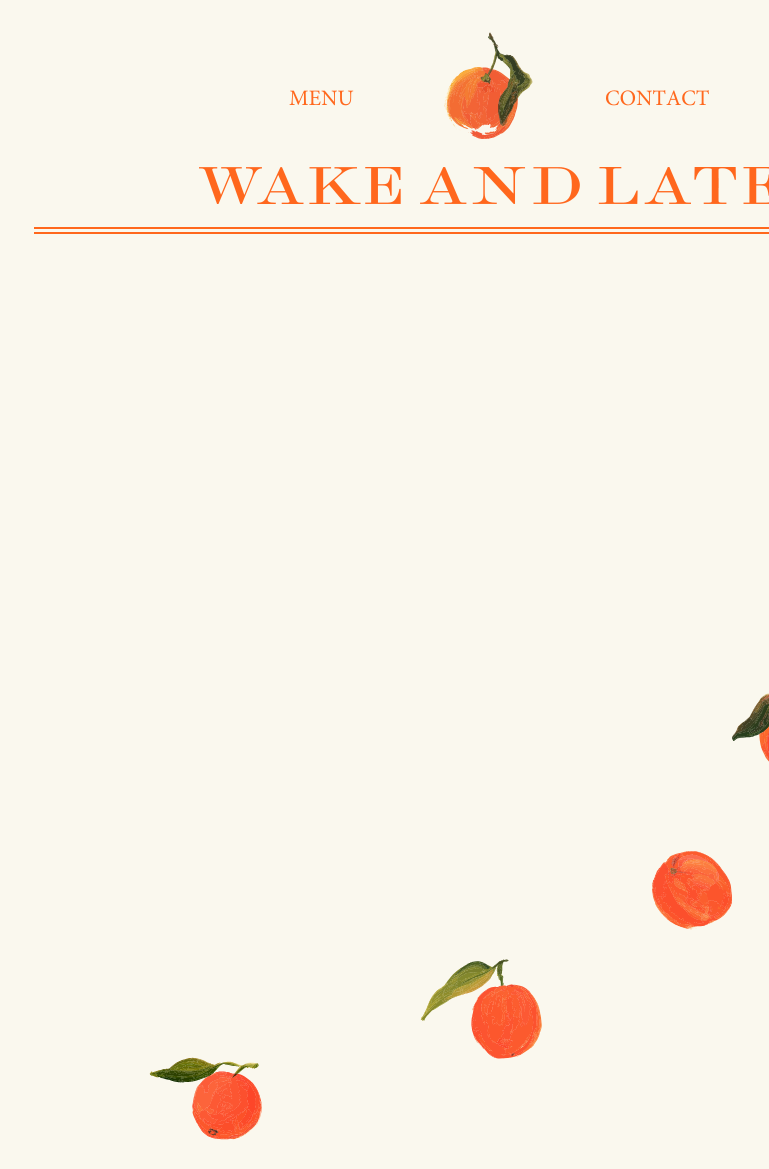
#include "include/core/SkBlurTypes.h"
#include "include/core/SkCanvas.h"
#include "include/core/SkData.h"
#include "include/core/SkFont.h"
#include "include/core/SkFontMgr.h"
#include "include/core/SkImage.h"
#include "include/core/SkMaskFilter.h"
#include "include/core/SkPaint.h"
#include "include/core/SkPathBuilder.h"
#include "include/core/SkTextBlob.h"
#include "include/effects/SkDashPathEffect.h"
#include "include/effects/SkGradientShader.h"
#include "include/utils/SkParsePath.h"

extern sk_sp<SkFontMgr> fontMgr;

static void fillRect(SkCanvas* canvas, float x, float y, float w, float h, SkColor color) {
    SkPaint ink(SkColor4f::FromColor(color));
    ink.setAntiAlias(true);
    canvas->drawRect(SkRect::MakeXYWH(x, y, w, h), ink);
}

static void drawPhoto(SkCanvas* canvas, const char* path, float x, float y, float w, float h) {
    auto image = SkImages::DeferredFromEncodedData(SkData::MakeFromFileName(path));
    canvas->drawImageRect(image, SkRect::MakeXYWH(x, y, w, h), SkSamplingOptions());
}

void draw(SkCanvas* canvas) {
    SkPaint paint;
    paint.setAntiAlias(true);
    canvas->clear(0xFFFAF8EE);
    drawPhoto(canvas, "assets/img1.png", 289, 90, 65, 16);
    drawPhoto(canvas, "assets/img2.png", 444, 32, 89, 107);
    drawPhoto(canvas, "assets/img3.png", 606, 90, 103, 16);
    drawPhoto(canvas, "assets/img4.png", 199, 167, 570, 37);
    fillRect(canvas, 34, 227, 735, 2, 0xFFFF681D);
    fillRect(canvas, 34, 232, 735, 2, 0xFFFF681D);
    drawPhoto(canvas, "assets/img5.png", 732, 693, 37, 69);
    drawPhoto(canvas, "assets/img6.png", 651, 851, 81, 79);
    drawPhoto(canvas, "assets/img7.png", 420, 959, 122, 100);
    drawPhoto(canvas, "assets/img8.png", 149, 1057, 113, 83);
}
